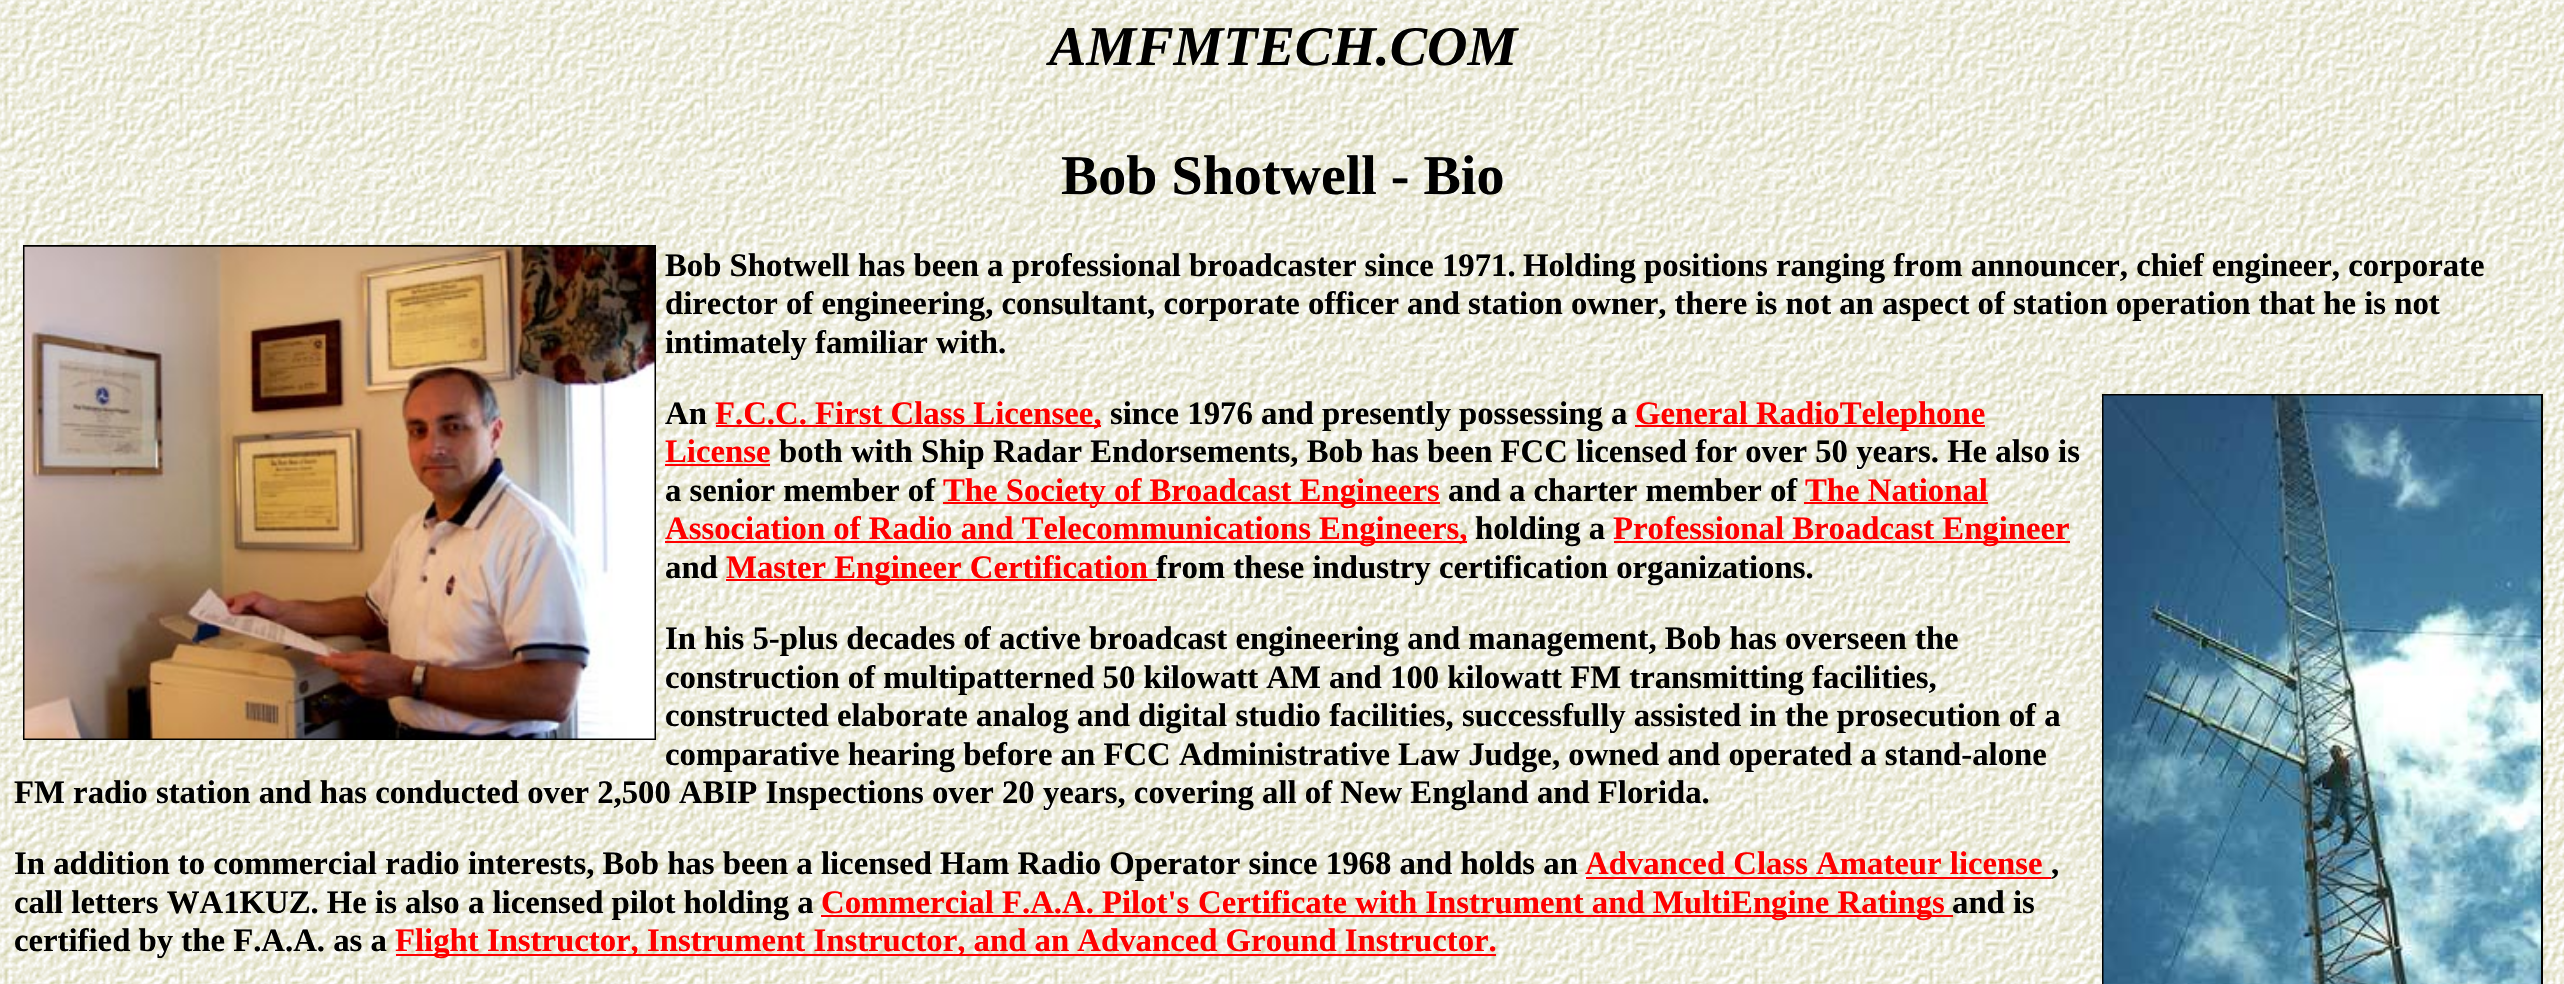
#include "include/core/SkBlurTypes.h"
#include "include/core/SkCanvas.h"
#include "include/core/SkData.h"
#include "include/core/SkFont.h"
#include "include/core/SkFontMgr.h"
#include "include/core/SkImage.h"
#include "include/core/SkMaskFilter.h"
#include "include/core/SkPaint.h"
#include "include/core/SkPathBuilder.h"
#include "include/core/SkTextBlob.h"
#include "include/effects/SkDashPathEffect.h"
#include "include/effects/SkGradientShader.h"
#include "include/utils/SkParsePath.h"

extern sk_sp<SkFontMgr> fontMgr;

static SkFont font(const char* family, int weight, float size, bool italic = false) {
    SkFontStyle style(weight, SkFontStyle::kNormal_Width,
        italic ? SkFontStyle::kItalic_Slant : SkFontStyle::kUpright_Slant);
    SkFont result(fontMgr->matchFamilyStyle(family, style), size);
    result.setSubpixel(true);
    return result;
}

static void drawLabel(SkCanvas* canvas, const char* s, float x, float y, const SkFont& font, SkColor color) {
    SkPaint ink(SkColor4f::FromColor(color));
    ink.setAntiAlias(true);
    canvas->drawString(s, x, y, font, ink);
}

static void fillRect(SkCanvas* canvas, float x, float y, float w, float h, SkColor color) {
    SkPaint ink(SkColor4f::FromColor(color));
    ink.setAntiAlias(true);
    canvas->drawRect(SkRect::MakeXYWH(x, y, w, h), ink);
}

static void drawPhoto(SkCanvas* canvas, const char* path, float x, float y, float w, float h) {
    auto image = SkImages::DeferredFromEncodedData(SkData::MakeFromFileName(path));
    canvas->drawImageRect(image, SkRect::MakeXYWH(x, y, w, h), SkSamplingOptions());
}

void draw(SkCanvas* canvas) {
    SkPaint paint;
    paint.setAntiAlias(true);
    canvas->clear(0xFFFFFFFF);
    drawPhoto(canvas, "assets/img1.png", 0, 0, 2564, 984);
    SkFont font1 = font("Liberation Serif", 700, 56, true);
    drawLabel(canvas, "AMFMTECH.COM", 1049, 65, font1, 0xFF000000);
    SkFont font2 = font("Liberation Serif", 700, 56);
    drawLabel(canvas, "Bob Shotwell - Bio", 1061, 194, font2, 0xFF000000);
    paint.setStroke(true);
    paint.setStrokeWidth(2);
    paint.setColor(0xFF000000);
    canvas->drawRect(SkRect::MakeXYWH(24, 246, 631, 493), paint);
    drawPhoto(canvas, "assets/img2.png", 24, 246, 631, 493);
    SkFont font3 = font("Liberation Serif", 700, 32.75f);
    drawLabel(canvas, "Bob Shotwell has been a professional broadcaster since 1971.", 665, 276, font3, 0xFF000000);
    drawLabel(canvas, "Holding positions ranging from announcer, chief engineer, corporate", 1523, 276, font3, 0xFF000000);
    drawLabel(canvas, "director of engineering, consultant, corporate officer and station owner, there is not an aspect of station operation that he is not", 665, 314, font3, 0xFF000000);
    drawLabel(canvas, "intimately familiar with.", 665, 353, font3, 0xFF000000);
    drawLabel(canvas, "An", 665, 424, font3, 0xFF000000);
    fillRect(canvas, 716, 425, 385, 2, 0xFFFF0000);
    drawLabel(canvas, "F.C.C. First Class Licensee,", 715, 424, font3, 0xFFFF0000);
    drawLabel(canvas, "since 1976 and presently", 1110, 424, font3, 0xFF000000);
    drawLabel(canvas, "possessing a", 1459, 424, font3, 0xFF000000);
    fillRect(canvas, 1635, 425, 350, 2, 0xFFFF0000);
    drawLabel(canvas, "General RadioTelephone", 1635, 424, font3, 0xFFFF0000);
    canvas->drawRect(SkRect::MakeXYWH(2103, 395, 439, 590), paint);
    drawPhoto(canvas, "assets/img3.png", 2103, 395, 438, 589);
    drawLabel(canvas, "License", 665, 462, font3, 0xFFFF0000);
    fillRect(canvas, 665, 464, 105, 2, 0xFFFF0000);
    drawLabel(canvas, "both with Ship Radar Endorsements, Bob has been FCC licensed for over 50 years. He also is", 779, 462, font3, 0xFF000000);
    drawLabel(canvas, "a senior member of", 665, 501, font3, 0xFF000000);
    fillRect(canvas, 943, 502, 497, 2, 0xFFFF0000);
    drawLabel(canvas, "The Society of Broadcast Engineers", 943, 501, font3, 0xFFFF0000);
    drawLabel(canvas, "and a charter member of", 1448, 501, font3, 0xFF000000);
    drawLabel(canvas, "The National", 1805, 501, font3, 0xFFFF0000);
    fillRect(canvas, 1804, 502, 184, 2, 0xFFFF0000);
    fillRect(canvas, 665, 541, 802, 2, 0xFFFF0000);
    drawLabel(canvas, "Association of Radio and Telecommunications Engineers,", 665, 539, font3, 0xFFFF0000);
    drawLabel(canvas, "holding a", 1475, 539, font3, 0xFF000000);
    fillRect(canvas, 1614, 541, 456, 2, 0xFFFF0000);
    drawLabel(canvas, "Professional Broadcast Engineer", 1613, 539, font3, 0xFFFF0000);
    drawLabel(canvas, "and", 665, 578, font3, 0xFF000000);
    fillRect(canvas, 726, 579, 431, 2, 0xFFFF0000);
    drawLabel(canvas, "Master Engineer Certification", 726, 578, font3, 0xFFFF0000);
    drawLabel(canvas, "from these industry certification organizations.", 1156, 578, font3, 0xFF000000);
    drawLabel(canvas, "In his 5-plus decades of active broadcast engineering and management, Bob has overseen the", 665, 649, font3, 0xFF000000);
    drawLabel(canvas, "construction of multipatterned 50 kilowatt AM and 100 kilowatt FM transmitting facilities,", 665, 688, font3, 0xFF000000);
    drawLabel(canvas, "constructed elaborate analog and digital studio facilities, successfully assisted in the prosecution of a", 665, 726, font3, 0xFF000000);
    drawLabel(canvas, "comparative hearing before an FCC Administrative Law Judge, owned and operated a stand-alone", 665, 765, font3, 0xFF000000);
    drawLabel(canvas, "FM radio station and has conducted over 2,500 ABIP Inspections over 20 years, covering all of New England and Florida.", 14, 803, font3, 0xFF000000);
    drawLabel(canvas, "In addition to commercial radio interests, Bob has been a licensed Ham Radio Operator since 1968 and holds an", 14, 874, font3, 0xFF000000);
    drawLabel(canvas, "Advanced Class Amateur license", 1585, 874, font3, 0xFFFF0000);
    fillRect(canvas, 1586, 877, 465, 2, 0xFFFF0000);
    drawLabel(canvas, ",", 2051, 874, font3, 0xFF000000);
    drawLabel(canvas, "call letters WA1KUZ. He is also a licensed pilot holding a", 14, 913, font3, 0xFF000000);
    drawLabel(canvas, "Commercial F.A.A. Pilot's", 821, 913, font3, 0xFFFF0000);
    fillRect(canvas, 821, 915, 1132, 2, 0xFFFF0000);
    drawLabel(canvas, "Certificate with Instrument and MultiEngine Ratings", 1198, 913, font3, 0xFFFF0000);
    drawLabel(canvas, "and is", 1952, 913, font3, 0xFF000000);
    drawLabel(canvas, "certified by the F.A.A. as a", 14, 951, font3, 0xFF000000);
    fillRect(canvas, 396, 954, 1100, 2, 0xFFFF0000);
    drawLabel(canvas, "Flight Instructor, Instrument Instructor, and an Advanced Ground Instructor.", 395, 951, font3, 0xFFFF0000);
}
